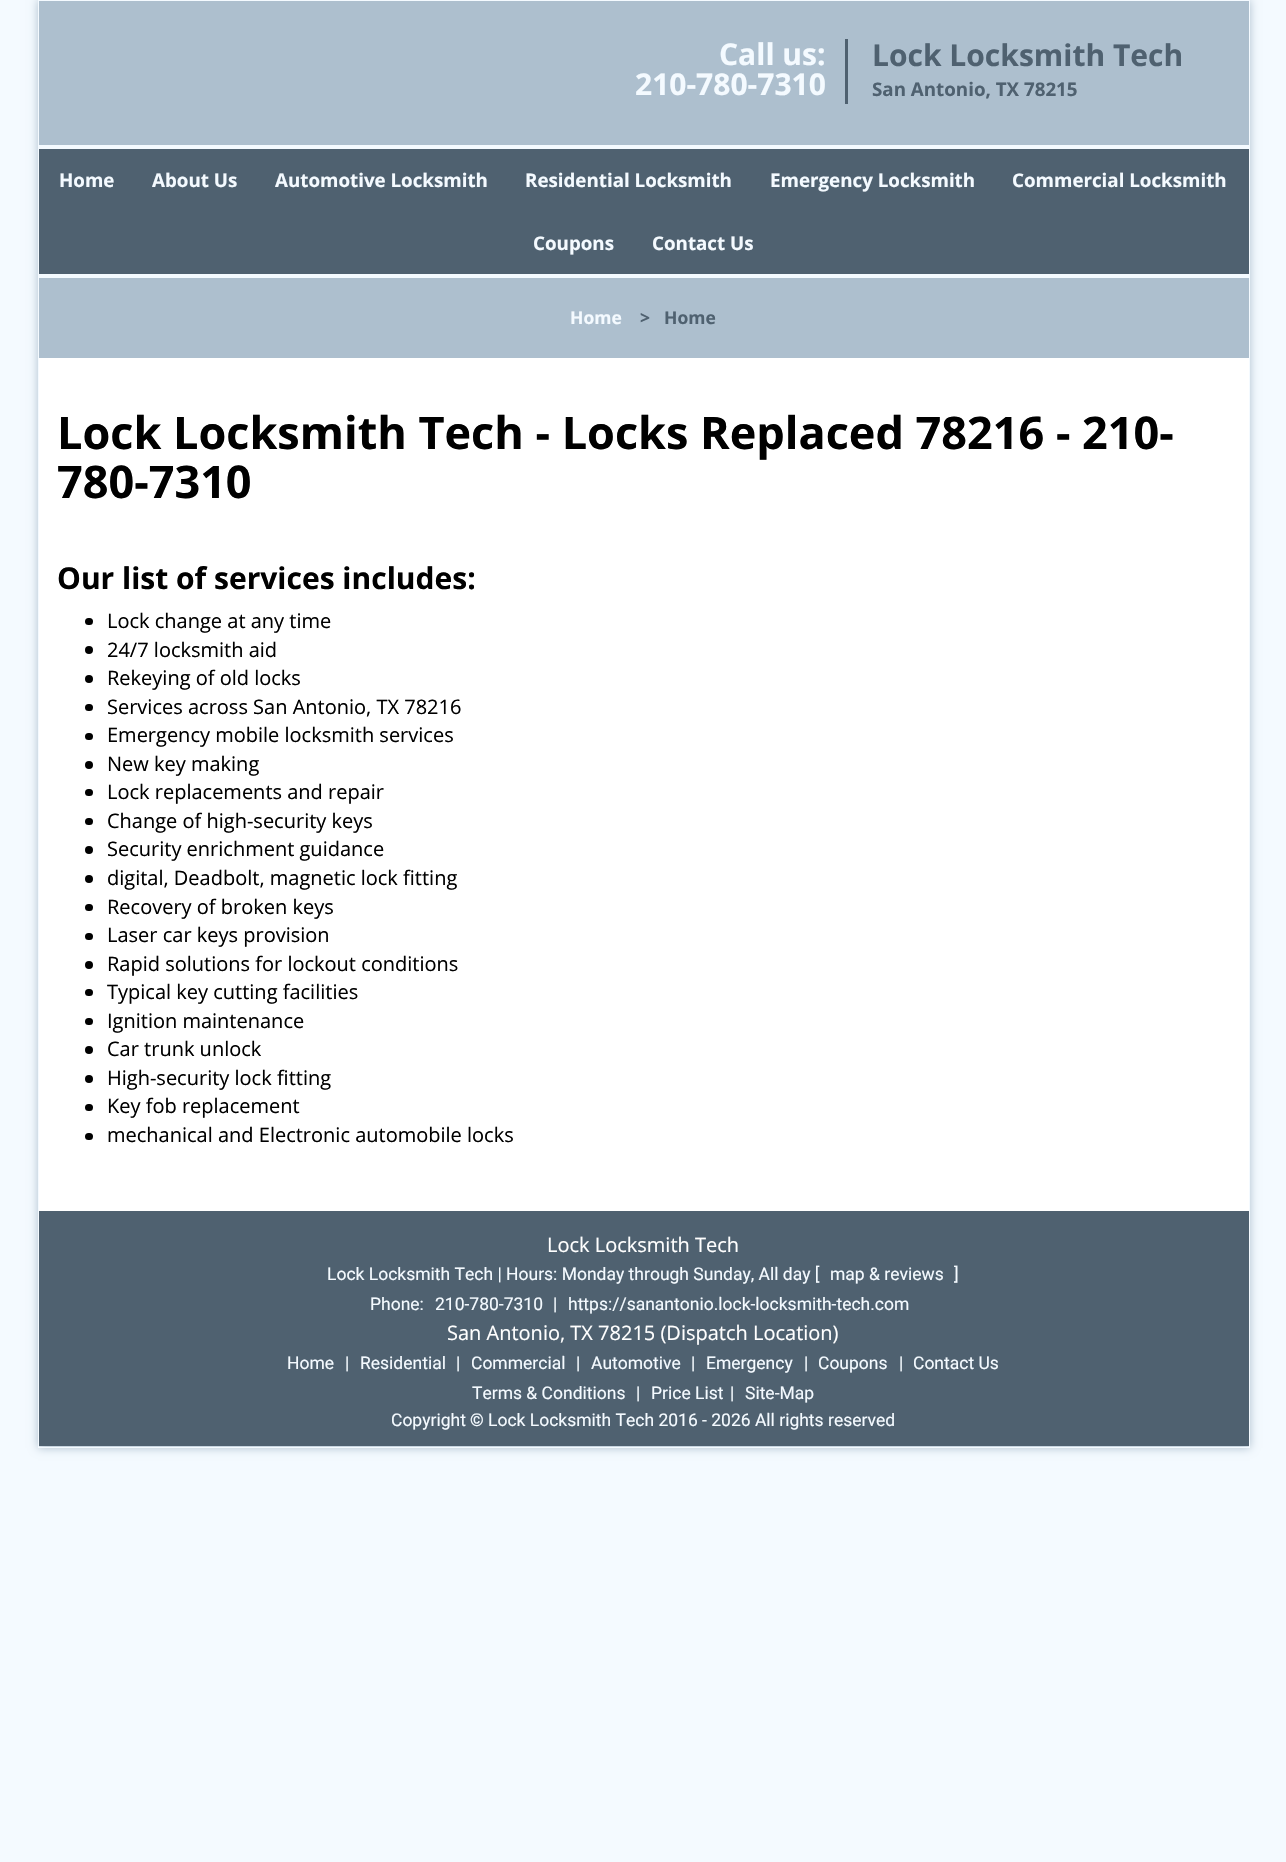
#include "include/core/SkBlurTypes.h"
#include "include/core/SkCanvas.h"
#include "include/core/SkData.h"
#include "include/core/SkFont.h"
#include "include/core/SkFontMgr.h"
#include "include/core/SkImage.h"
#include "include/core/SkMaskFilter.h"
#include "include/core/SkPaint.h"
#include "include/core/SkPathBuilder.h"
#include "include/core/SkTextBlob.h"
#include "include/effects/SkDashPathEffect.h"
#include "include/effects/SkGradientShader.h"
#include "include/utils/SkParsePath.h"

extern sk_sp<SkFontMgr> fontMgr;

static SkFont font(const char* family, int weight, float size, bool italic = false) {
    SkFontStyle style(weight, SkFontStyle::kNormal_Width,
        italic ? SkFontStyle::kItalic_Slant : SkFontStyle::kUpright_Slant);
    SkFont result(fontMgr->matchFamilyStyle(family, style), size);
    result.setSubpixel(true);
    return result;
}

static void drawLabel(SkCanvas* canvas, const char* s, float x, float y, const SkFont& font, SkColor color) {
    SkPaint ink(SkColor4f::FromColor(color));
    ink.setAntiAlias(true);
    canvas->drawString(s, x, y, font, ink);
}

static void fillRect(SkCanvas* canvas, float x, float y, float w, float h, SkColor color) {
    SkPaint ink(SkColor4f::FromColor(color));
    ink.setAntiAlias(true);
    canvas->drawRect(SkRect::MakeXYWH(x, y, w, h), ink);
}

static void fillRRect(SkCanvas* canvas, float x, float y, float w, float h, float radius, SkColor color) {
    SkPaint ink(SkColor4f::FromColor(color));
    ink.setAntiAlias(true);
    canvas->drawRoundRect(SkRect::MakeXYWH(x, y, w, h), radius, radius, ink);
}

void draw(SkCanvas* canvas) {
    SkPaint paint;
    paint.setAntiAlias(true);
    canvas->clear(0xFFF4FAFF);
    paint.setColor(0xFFADBFCE);
    paint.setMaskFilter(SkMaskFilter::MakeBlur(kNormal_SkBlurStyle, 4.5f));
    canvas->drawRect(SkRect::MakeXYWH(38, 0, 1212, 1448), paint);
    paint.setMaskFilter(nullptr);
    paint.setStroke(true);
    paint.setStrokeWidth(1);
    paint.setColor(0xFFF4FAFF);
    canvas->drawRect(SkRect::MakeXYWH(38.5f, 0.5f, 1211, 1447), paint);
    fillRect(canvas, 39, 1, 1210, 144, 0xFFADBFCE);
    SkFont font1 = font("Open Sans", 700, 30);
    drawLabel(canvas, "Call us:", 719, 65, font1, 0xFFF4FAFF);
    drawLabel(canvas, "210-780-7310", 635, 95, font1, 0xFFF4FAFF);
    fillRect(canvas, 845, 39, 3, 65, 0xFF4F6170);
    drawLabel(canvas, "Lock Locksmith Tech", 872, 66, font1, 0xFF4F6170);
    SkFont font2 = font("Open Sans", 700, 18.75f);
    drawLabel(canvas, "San Antonio, TX 78215", 872, 96, font2, 0xFF4F6170);
    fillRect(canvas, 39, 149, 1210, 125, 0xFF4F6170);
    fillRect(canvas, 39, 145, 1210, 4, 0xFFF4FAFF);
    fillRect(canvas, 39, 274, 1210, 4, 0xFFF4FAFF);
    drawLabel(canvas, "Home", 59, 187, font2, 0xFFF4FAFF);
    drawLabel(canvas, "About Us", 152, 187, font2, 0xFFF4FAFF);
    drawLabel(canvas, "Automotive Locksmith", 275, 187, font2, 0xFFF4FAFF);
    drawLabel(canvas, "Residential Locksmith", 525, 187, font2, 0xFFF4FAFF);
    drawLabel(canvas, "Emergency Locksmith", 770, 187, font2, 0xFFF4FAFF);
    drawLabel(canvas, "Commercial Locksmith", 1012, 187, font2, 0xFFF4FAFF);
    drawLabel(canvas, "Coupons", 533, 250, font2, 0xFFF4FAFF);
    drawLabel(canvas, "Contact Us", 652, 250, font2, 0xFFF4FAFF);
    fillRect(canvas, 39, 278, 1210, 80, 0xFFADBFCE);
    SkFont font3 = font("Open Sans", 700, 17.5f);
    drawLabel(canvas, "Home", 570, 324, font3, 0xFFF4FAFF);
    drawLabel(canvas, ">", 640, 324, font3, 0xFF4F6170);
    drawLabel(canvas, "Home", 664, 324, font3, 0xFF4F6170);
    fillRect(canvas, 39, 358, 1210, 853, 0xFFFFFFFF);
    SkFont font4 = font("Open Sans", 700, 45);
    drawLabel(canvas, "Lock Locksmith Tech - Locks Replaced 78216 - 210-", 57, 449, font4, 0xFF000000);
    drawLabel(canvas, "780-7310", 57, 498, font4, 0xFF000000);
    drawLabel(canvas, "Our list of services includes:", 57, 589, font1, 0xFF000000);
    fillRRect(canvas, 85, 618, 8, 7, 3.5f, 0xFF000000);
    SkFont font5 = font("Open Sans", 400, 20);
    drawLabel(canvas, "Lock change at any time", 107, 628, font5, 0xFF000000);
    paint.setStroke(false);
    paint.setColor(0xFF000000);
    canvas->drawCircle(89, 650, 4, paint);
    drawLabel(canvas, "24/7 locksmith aid", 107, 657, font5, 0xFF000000);
    canvas->drawCircle(89, 679, 4, paint);
    drawLabel(canvas, "Rekeying of old locks", 107, 685, font5, 0xFF000000);
    fillRRect(canvas, 85, 704, 8, 7, 3.5f, 0xFF000000);
    drawLabel(canvas, "Services across San Antonio, TX 78216", 107, 714, font5, 0xFF000000);
    fillRRect(canvas, 85, 733, 8, 7, 3.5f, 0xFF000000);
    drawLabel(canvas, "Emergency mobile locksmith services", 107, 742, font5, 0xFF000000);
    canvas->drawCircle(89, 765, 4, paint);
    drawLabel(canvas, "New key making", 107, 771, font5, 0xFF000000);
    fillRRect(canvas, 85, 789, 8, 7, 3.5f, 0xFF000000);
    drawLabel(canvas, "Lock replacements and repair", 107, 799, font5, 0xFF000000);
    fillRRect(canvas, 85, 818, 8, 7, 3.5f, 0xFF000000);
    drawLabel(canvas, "Change of high-security keys", 107, 828, font5, 0xFF000000);
    canvas->drawCircle(89, 850, 4, paint);
    drawLabel(canvas, "Security enrichment guidance", 107, 856, font5, 0xFF000000);
    canvas->drawCircle(89, 879, 4, paint);
    drawLabel(canvas, "digital, Deadbolt, magnetic lock fitting", 107, 885, font5, 0xFF000000);
    fillRRect(canvas, 85, 904, 8, 7, 3.5f, 0xFF000000);
    drawLabel(canvas, "Recovery of broken keys", 107, 914, font5, 0xFF000000);
    fillRRect(canvas, 85, 933, 8, 7, 3.5f, 0xFF000000);
    drawLabel(canvas, "Laser car keys provision", 107, 942, font5, 0xFF000000);
    canvas->drawCircle(89, 965, 4, paint);
    drawLabel(canvas, "Rapid solutions for lockout conditions", 107, 971, font5, 0xFF000000);
    fillRRect(canvas, 85, 989, 8, 7, 3.5f, 0xFF000000);
    drawLabel(canvas, "Typical key cutting facilities", 107, 999, font5, 0xFF000000);
    fillRRect(canvas, 85, 1018, 8, 7, 3.5f, 0xFF000000);
    drawLabel(canvas, "Ignition maintenance", 107, 1028, font5, 0xFF000000);
    canvas->drawCircle(89, 1050, 4, paint);
    drawLabel(canvas, "Car trunk unlock", 107, 1056, font5, 0xFF000000);
    canvas->drawCircle(89, 1079, 4, paint);
    drawLabel(canvas, "High-security lock fitting", 107, 1085, font5, 0xFF000000);
    fillRRect(canvas, 85, 1104, 8, 7, 3.5f, 0xFF000000);
    drawLabel(canvas, "Key fob replacement", 107, 1113, font5, 0xFF000000);
    fillRRect(canvas, 85, 1133, 8, 7, 3.5f, 0xFF000000);
    drawLabel(canvas, "mechanical and Electronic automobile locks", 107, 1142, font5, 0xFF000000);
    fillRect(canvas, 39, 1211, 1210, 235, 0xFF4F6170);
    drawLabel(canvas, "Lock Locksmith Tech", 547, 1252, font5, 0xFFFFFFFF);
    SkFont font6 = font("Roboto", 400, 17.5f);
    drawLabel(canvas, "Lock Locksmith Tech | Hours: Monday through Sunday, All day [", 327, 1280, font6, 0xFFF4FAFF);
    drawLabel(canvas, "map & reviews", 830, 1280, font6, 0xFFF4FAFF);
    drawLabel(canvas, "]", 954, 1280, font6, 0xFFF4FAFF);
    drawLabel(canvas, "Phone:", 370, 1310, font6, 0xFFF4FAFF);
    drawLabel(canvas, "210-780-7310", 435, 1310, font6, 0xFFF4FAFF);
    drawLabel(canvas, "|", 553, 1310, font6, 0xFFF4FAFF);
    drawLabel(canvas, "https://sanantonio.lock-locksmith-tech.com", 568, 1310, font6, 0xFFF4FAFF);
    drawLabel(canvas, "San Antonio, TX 78215 (Dispatch Location)", 447, 1340, font5, 0xFFFFFFFF);
    drawLabel(canvas, "Home", 287, 1369, font6, 0xFFF4FAFF);
    drawLabel(canvas, "|", 345, 1369, font6, 0xFFF4FAFF);
    drawLabel(canvas, "Residential", 360, 1369, font6, 0xFFF4FAFF);
    drawLabel(canvas, "|", 456, 1369, font6, 0xFFF4FAFF);
    drawLabel(canvas, "Commercial", 471, 1369, font6, 0xFFF4FAFF);
    drawLabel(canvas, "|", 576, 1369, font6, 0xFFF4FAFF);
    drawLabel(canvas, "Automotive", 591, 1369, font6, 0xFFF4FAFF);
    drawLabel(canvas, "|", 691, 1369, font6, 0xFFF4FAFF);
    drawLabel(canvas, "Emergency", 706, 1369, font6, 0xFFF4FAFF);
    drawLabel(canvas, "|", 804, 1369, font6, 0xFFF4FAFF);
    drawLabel(canvas, "Coupons", 818, 1369, font6, 0xFFF4FAFF);
    drawLabel(canvas, "|", 899, 1369, font6, 0xFFF4FAFF);
    drawLabel(canvas, "Contact Us", 913, 1369, font6, 0xFFF4FAFF);
    drawLabel(canvas, "Terms & Conditions", 472, 1399, font6, 0xFFF4FAFF);
    drawLabel(canvas, "|", 636, 1399, font6, 0xFFF4FAFF);
    drawLabel(canvas, "Price List", 651, 1399, font6, 0xFFF4FAFF);
    drawLabel(canvas, "|", 730, 1399, font6, 0xFFF4FAFF);
    drawLabel(canvas, "Site-Map", 745, 1399, font6, 0xFFF4FAFF);
    drawLabel(canvas, "Copyright", 391, 1426, font6, 0xFFF4FAFF);
    SkFont font7 = font("Roboto", 700, 17.5f);
    drawLabel(canvas, "©", 470, 1426, font7, 0xFFF4FAFF);
    drawLabel(canvas, "Lock Locksmith Tech 2016 - 2026 All rights reserved", 488, 1426, font6, 0xFFF4FAFF);
}
